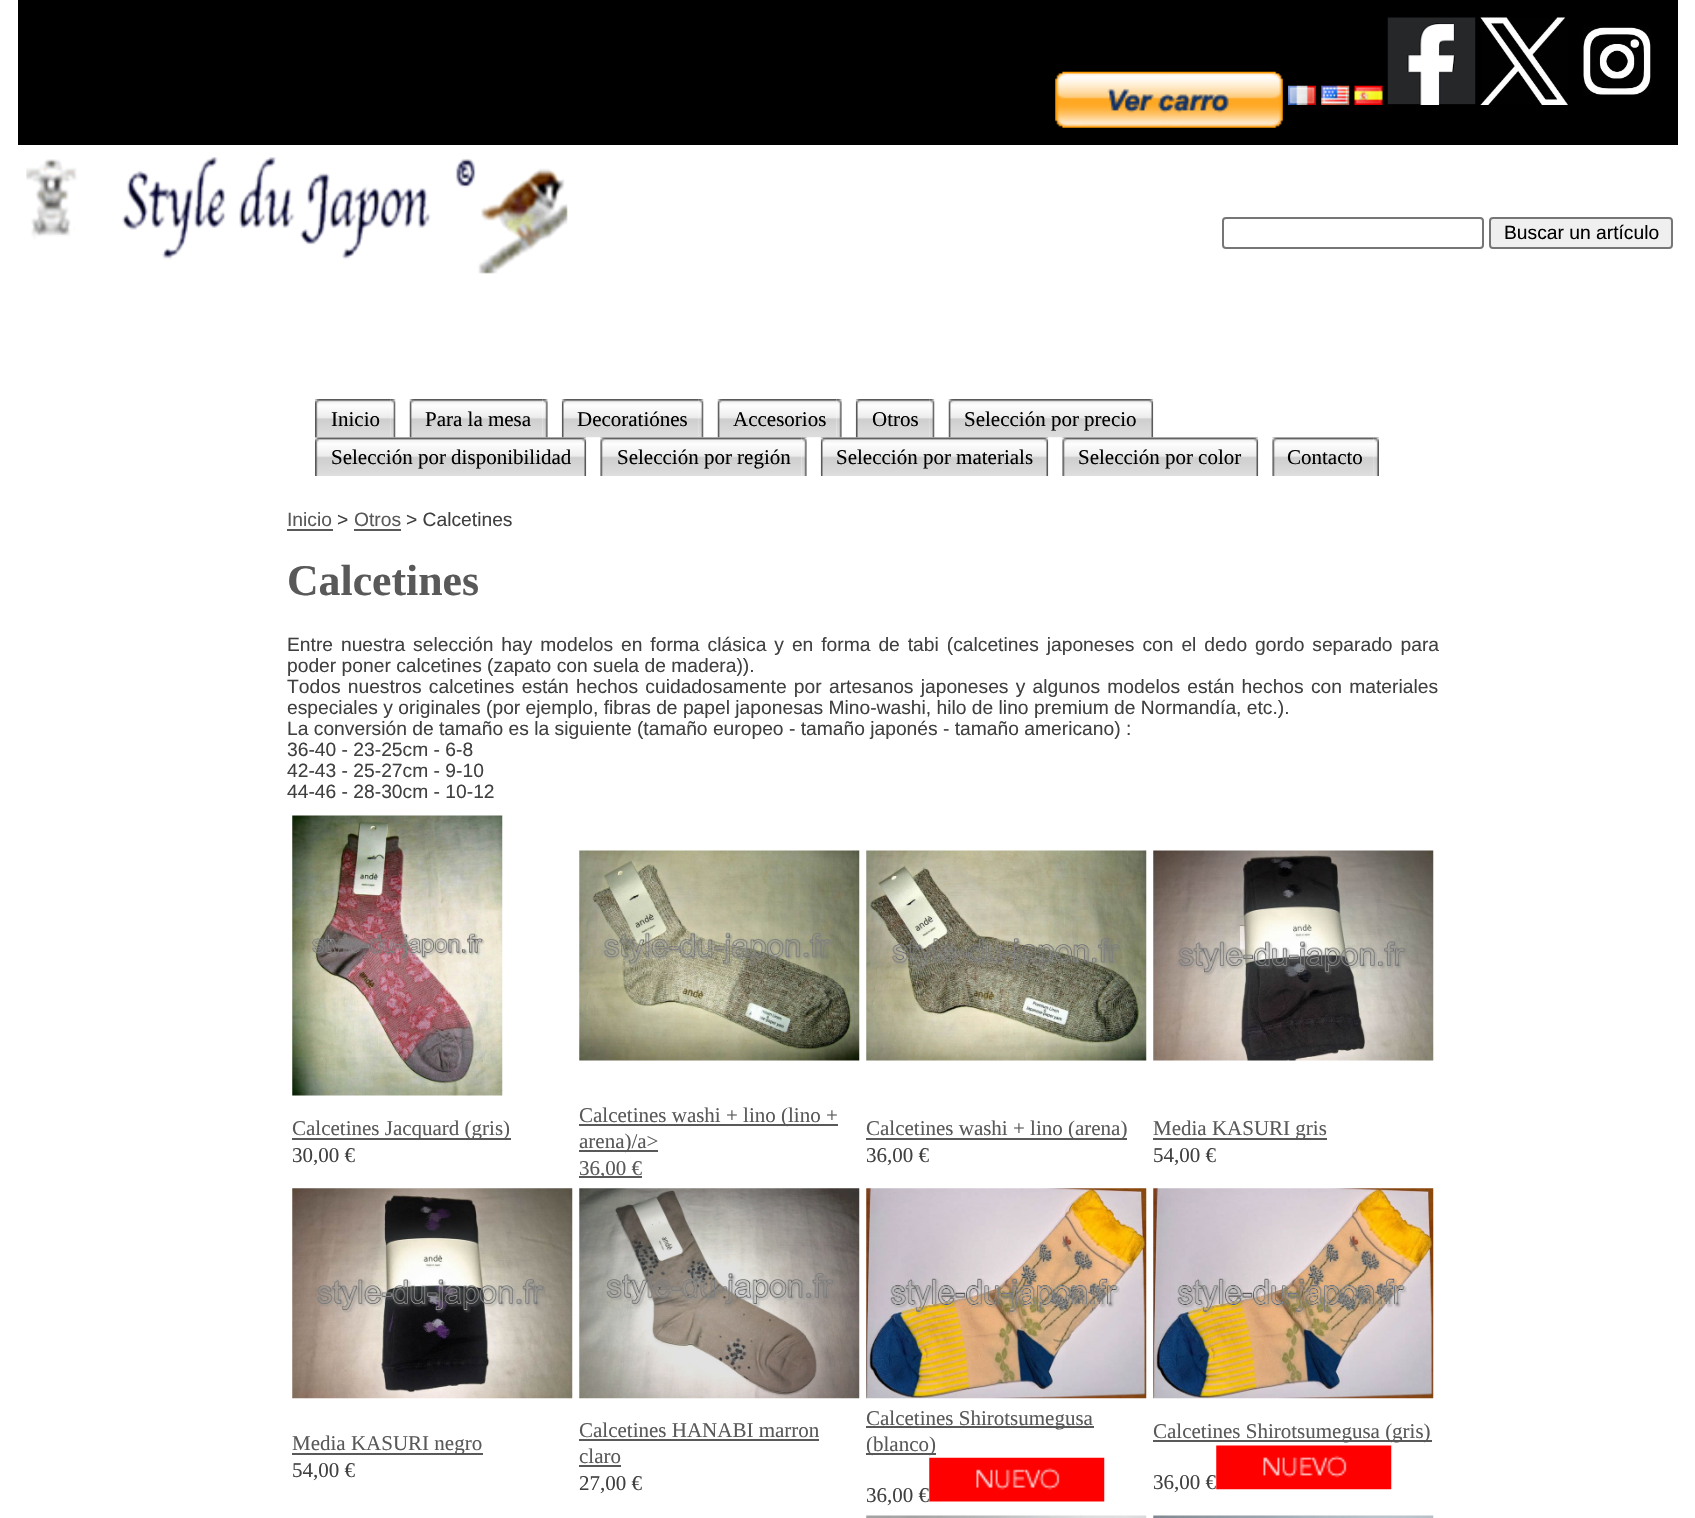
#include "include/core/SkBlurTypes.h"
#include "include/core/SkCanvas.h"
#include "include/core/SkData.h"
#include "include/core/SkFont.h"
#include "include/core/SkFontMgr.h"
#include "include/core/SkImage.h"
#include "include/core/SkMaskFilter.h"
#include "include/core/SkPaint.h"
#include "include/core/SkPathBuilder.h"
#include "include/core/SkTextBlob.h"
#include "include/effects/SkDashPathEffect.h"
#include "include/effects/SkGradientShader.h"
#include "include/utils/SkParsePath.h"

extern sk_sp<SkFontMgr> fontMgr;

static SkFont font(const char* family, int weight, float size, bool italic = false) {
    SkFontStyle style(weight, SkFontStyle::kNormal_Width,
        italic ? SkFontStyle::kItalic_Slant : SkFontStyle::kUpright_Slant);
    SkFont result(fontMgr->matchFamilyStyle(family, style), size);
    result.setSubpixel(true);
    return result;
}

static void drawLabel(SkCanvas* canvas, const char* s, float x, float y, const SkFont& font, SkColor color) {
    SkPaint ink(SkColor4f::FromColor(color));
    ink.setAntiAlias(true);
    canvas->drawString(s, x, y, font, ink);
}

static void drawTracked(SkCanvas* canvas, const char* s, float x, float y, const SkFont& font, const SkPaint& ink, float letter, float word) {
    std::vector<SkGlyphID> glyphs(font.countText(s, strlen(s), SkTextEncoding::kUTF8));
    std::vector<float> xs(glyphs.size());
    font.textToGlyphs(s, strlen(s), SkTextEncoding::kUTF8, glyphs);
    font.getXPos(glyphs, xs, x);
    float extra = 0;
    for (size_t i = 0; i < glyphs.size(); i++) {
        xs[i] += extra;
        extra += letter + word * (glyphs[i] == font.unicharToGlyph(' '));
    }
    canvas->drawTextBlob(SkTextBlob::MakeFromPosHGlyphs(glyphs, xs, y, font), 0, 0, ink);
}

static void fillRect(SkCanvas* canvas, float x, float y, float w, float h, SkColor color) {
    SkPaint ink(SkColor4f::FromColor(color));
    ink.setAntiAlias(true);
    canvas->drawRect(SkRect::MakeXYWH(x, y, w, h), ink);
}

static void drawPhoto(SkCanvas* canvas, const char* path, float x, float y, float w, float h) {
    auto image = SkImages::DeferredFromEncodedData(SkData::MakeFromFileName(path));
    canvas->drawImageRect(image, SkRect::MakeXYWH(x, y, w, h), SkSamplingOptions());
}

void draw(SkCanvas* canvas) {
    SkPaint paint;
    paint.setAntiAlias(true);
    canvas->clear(0xFFFFFFFF);
    fillRect(canvas, 18, 0, 1660, 145, 0xFF000000);
    drawPhoto(canvas, "assets/img1.png", 1055, 71, 228, 57);
    drawPhoto(canvas, "assets/img2.png", 1288, 85, 28, 20);
    drawPhoto(canvas, "assets/img3.png", 1321, 85, 29, 20);
    drawPhoto(canvas, "assets/img4.png", 1354, 85, 29, 20);
    drawPhoto(canvas, "assets/img5.png", 1387, 17, 89, 88);
    drawPhoto(canvas, "assets/img6.png", 1480, 17, 88, 88);
    drawPhoto(canvas, "assets/img7.png", 1583, 27, 68, 68);
    drawPhoto(canvas, "assets/img8.png", 26, 157, 542, 117);
    paint.setStroke(true);
    paint.setStrokeWidth(2);
    paint.setColor(0xFF767676);
    canvas->drawRoundRect(SkRect::MakeXYWH(1223, 218, 260, 30), 3, 3, paint);
    paint.setStroke(false);
    paint.setColor(0xFFEFEFEF);
    canvas->drawRoundRect(SkRect::MakeXYWH(1490, 218, 182, 30), 3, 3, paint);
    paint.setStroke(true);
    paint.setColor(0xFF767676);
    canvas->drawRoundRect(SkRect::MakeXYWH(1490, 218, 182, 30), 3, 3, paint);
    SkFont font1 = font("Liberation Sans", 400, 19.25f);
    drawLabel(canvas, "Buscar un artículo", 1504, 239, font1, 0xFF000000);
    drawPhoto(canvas, "assets/img9.png", 315, 399, 76, 39);
    drawPhoto(canvas, "assets/img10.png", 390, 399, 6, 39);
    SkFont font2 = font("Liberation Serif", 400, 21);
    drawLabel(canvas, "Inicio", 331, 426, font2, 0xFF000000);
    drawPhoto(canvas, "assets/img11.png", 409, 399, 134, 39);
    drawPhoto(canvas, "assets/img12.png", 542, 399, 6, 39);
    drawLabel(canvas, "Para la mesa", 425, 426, font2, 0xFF000000);
    drawPhoto(canvas, "assets/img13.png", 561, 399, 138, 39);
    drawPhoto(canvas, "assets/img10.png", 698, 399, 6, 39);
    drawLabel(canvas, "Decoratiónes", 577, 426, font2, 0xFF000000);
    drawPhoto(canvas, "assets/img14.png", 717, 399, 120, 39);
    drawPhoto(canvas, "assets/img12.png", 836, 399, 6, 39);
    drawLabel(canvas, "Accesorios", 733, 426, font2, 0xFF000000);
    drawPhoto(canvas, "assets/img15.png", 855, 399, 75, 39);
    drawPhoto(canvas, "assets/img10.png", 929, 399, 6, 39);
    drawLabel(canvas, "Otros", 872, 426, font2, 0xFF000000);
    drawPhoto(canvas, "assets/img16.png", 948, 399, 200, 39);
    drawPhoto(canvas, "assets/img17.png", 1148, 399, 6, 39);
    drawLabel(canvas, "Selección por precio", 964, 426, font2, 0xFF000000);
    drawPhoto(canvas, "assets/img18.png", 315, 437, 266, 39);
    drawPhoto(canvas, "assets/img19.png", 581, 437, 6, 39);
    drawLabel(canvas, "Selección por disponibilidad", 331, 464, font2, 0xFF000000);
    drawPhoto(canvas, "assets/img20.png", 600, 437, 202, 39);
    drawPhoto(canvas, "assets/img21.png", 801, 437, 6, 39);
    drawLabel(canvas, "Selección por región", 617, 464, font2, 0xFF000000);
    drawPhoto(canvas, "assets/img22.png", 820, 437, 223, 39);
    drawPhoto(canvas, "assets/img19.png", 1043, 437, 6, 39);
    drawLabel(canvas, "Selección por materials", 836, 464, font2, 0xFF000000);
    drawPhoto(canvas, "assets/img23.png", 1062, 437, 191, 39);
    drawPhoto(canvas, "assets/img24.png", 1253, 437, 6, 39);
    drawLabel(canvas, "Selección por color", 1078, 464, font2, 0xFF000000);
    drawPhoto(canvas, "assets/img25.png", 1272, 437, 102, 39);
    drawPhoto(canvas, "assets/img26.png", 1373, 437, 6, 39);
    drawLabel(canvas, "Contacto", 1287, 464, font2, 0xFF000000);
    drawLabel(canvas, "Inicio", 287, 526, font1, 0xFF595959);
    fillRect(canvas, 287, 529, 46, 2, 0xFF595959);
    drawLabel(canvas, ">", 337, 526, font1, 0xFF404040);
    drawLabel(canvas, "Otros", 354, 526, font1, 0xFF595959);
    fillRect(canvas, 354, 529, 47, 2, 0xFF595959);
    drawLabel(canvas, "> Calcetines", 406, 526, font1, 0xFF404040);
    SkFont font3 = font("Liberation Serif", 700, 43.75f);
    drawLabel(canvas, "Calcetines", 287, 595, font3, 0xFF595959);
    paint.setStroke(false);
    paint.setColor(0xFF404040);
    drawTracked(canvas, "Entre nuestra selección hay modelos en forma clásica y en forma de tabi (calcetines japoneses con el dedo gordo separado para", 287, 651, font1, paint, 0, 2.6f);
    drawLabel(canvas, "poder poner calcetines (zapato con suela de madera)).", 287, 672, font1, 0xFF404040);
    drawTracked(canvas, "Todos nuestros calcetines están hechos cuidadosamente por artesanos japoneses y algunos modelos están hechos con materiales", 287, 693, font1, paint, 0, 1.9f);
    drawLabel(canvas, "especiales y originales (por ejemplo, fibras de papel japonesas Mino-washi, hilo de lino premium de Normandía, etc.).", 287, 714, font1, 0xFF404040);
    drawLabel(canvas, "La conversión de tamaño es la siguiente (tamaño europeo - tamaño japonés - tamaño americano) :", 287, 735, font1, 0xFF404040);
    drawLabel(canvas, "36-40 - 23-25cm - 6-8", 287, 756, font1, 0xFF404040);
    drawLabel(canvas, "42-43 - 25-27cm - 9-10", 287, 777, font1, 0xFF404040);
    drawLabel(canvas, "44-46 - 28-30cm - 10-12", 287, 798, font1, 0xFF404040);
    drawPhoto(canvas, "assets/img27.png", 292, 815, 211, 281);
    drawPhoto(canvas, "assets/img28.png", 579, 850, 281, 211);
    drawPhoto(canvas, "assets/img29.png", 866, 850, 281, 211);
    drawPhoto(canvas, "assets/img30.png", 1153, 850, 281, 211);
    fillRect(canvas, 292, 1138, 219, 2, 0xFF595959);
    drawLabel(canvas, "Calcetines Jacquard (gris)", 292, 1135, font2, 0xFF595959);
    drawLabel(canvas, "30,00 €", 292, 1162, font2, 0xFF404040);
    fillRect(canvas, 579, 1124, 259, 2, 0xFF595959);
    drawLabel(canvas, "Calcetines washi + lino (lino +", 579, 1122, font2, 0xFF595959);
    fillRect(canvas, 579, 1150, 79, 2, 0xFF595959);
    drawLabel(canvas, "arena)/a>", 579, 1148, font2, 0xFF595959);
    fillRect(canvas, 579, 1176, 63, 2, 0xFF595959);
    drawLabel(canvas, "36,00 €", 579, 1175, font2, 0xFF595959);
    fillRect(canvas, 866, 1138, 261, 2, 0xFF595959);
    drawLabel(canvas, "Calcetines washi + lino (arena)", 866, 1135, font2, 0xFF595959);
    drawLabel(canvas, "36,00 €", 866, 1162, font2, 0xFF404040);
    fillRect(canvas, 1153, 1138, 174, 2, 0xFF595959);
    drawLabel(canvas, "Media KASURI gris", 1153, 1135, font2, 0xFF595959);
    drawLabel(canvas, "54,00 €", 1153, 1162, font2, 0xFF404040);
    drawPhoto(canvas, "assets/img31.png", 292, 1188, 281, 211);
    drawPhoto(canvas, "assets/img32.png", 579, 1188, 281, 211);
    drawPhoto(canvas, "assets/img33.png", 866, 1188, 281, 211);
    drawPhoto(canvas, "assets/img33.png", 1153, 1188, 281, 211);
    fillRect(canvas, 292, 1453, 191, 2, 0xFF595959);
    drawLabel(canvas, "Media KASURI negro", 292, 1450, font2, 0xFF595959);
    drawLabel(canvas, "54,00 €", 292, 1477, font2, 0xFF404040);
    drawLabel(canvas, "Calcetines HANABI marron", 579, 1437, font2, 0xFF595959);
    fillRect(canvas, 579, 1439, 240, 2, 0xFF595959);
    drawLabel(canvas, "claro", 579, 1463, font2, 0xFF595959);
    fillRect(canvas, 579, 1465, 42, 2, 0xFF595959);
    drawLabel(canvas, "27,00 €", 579, 1490, font2, 0xFF404040);
    fillRect(canvas, 866, 1426, 228, 2, 0xFF595959);
    drawLabel(canvas, "Calcetines Shirotsumegusa", 866, 1425, font2, 0xFF595959);
    fillRect(canvas, 866, 1453, 70, 2, 0xFF595959);
    drawLabel(canvas, "(blanco)", 866, 1451, font2, 0xFF595959);
    drawLabel(canvas, "36,00 €", 866, 1502, font2, 0xFF404040);
    drawPhoto(canvas, "assets/img34.png", 929, 1457, 176, 45);
    fillRect(canvas, 1153, 1440, 279, 2, 0xFF595959);
    drawLabel(canvas, "Calcetines Shirotsumegusa (gris)", 1153, 1438, font2, 0xFF595959);
    drawLabel(canvas, "36,00 €", 1153, 1489, font2, 0xFF404040);
    drawPhoto(canvas, "assets/img35.png", 1216, 1445, 176, 45);
    drawPhoto(canvas, "assets/img36.png", 866, 1515, 281, 3);
    drawPhoto(canvas, "assets/img37.png", 1153, 1515, 281, 3);
}
